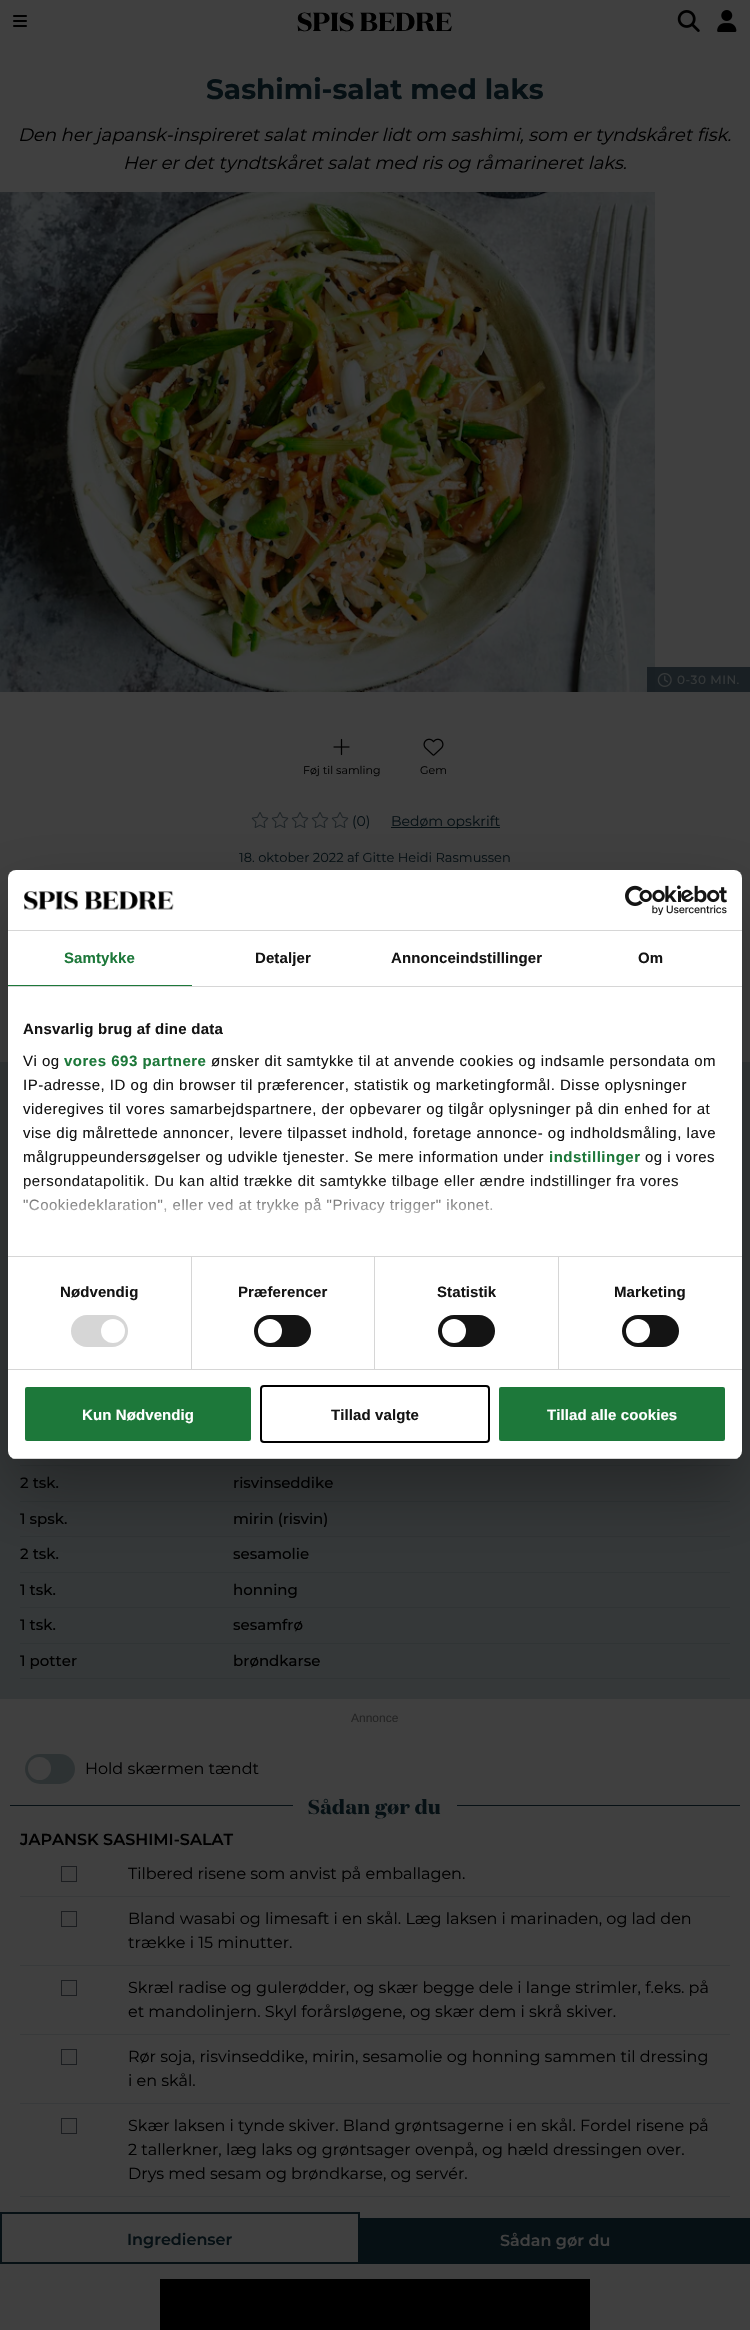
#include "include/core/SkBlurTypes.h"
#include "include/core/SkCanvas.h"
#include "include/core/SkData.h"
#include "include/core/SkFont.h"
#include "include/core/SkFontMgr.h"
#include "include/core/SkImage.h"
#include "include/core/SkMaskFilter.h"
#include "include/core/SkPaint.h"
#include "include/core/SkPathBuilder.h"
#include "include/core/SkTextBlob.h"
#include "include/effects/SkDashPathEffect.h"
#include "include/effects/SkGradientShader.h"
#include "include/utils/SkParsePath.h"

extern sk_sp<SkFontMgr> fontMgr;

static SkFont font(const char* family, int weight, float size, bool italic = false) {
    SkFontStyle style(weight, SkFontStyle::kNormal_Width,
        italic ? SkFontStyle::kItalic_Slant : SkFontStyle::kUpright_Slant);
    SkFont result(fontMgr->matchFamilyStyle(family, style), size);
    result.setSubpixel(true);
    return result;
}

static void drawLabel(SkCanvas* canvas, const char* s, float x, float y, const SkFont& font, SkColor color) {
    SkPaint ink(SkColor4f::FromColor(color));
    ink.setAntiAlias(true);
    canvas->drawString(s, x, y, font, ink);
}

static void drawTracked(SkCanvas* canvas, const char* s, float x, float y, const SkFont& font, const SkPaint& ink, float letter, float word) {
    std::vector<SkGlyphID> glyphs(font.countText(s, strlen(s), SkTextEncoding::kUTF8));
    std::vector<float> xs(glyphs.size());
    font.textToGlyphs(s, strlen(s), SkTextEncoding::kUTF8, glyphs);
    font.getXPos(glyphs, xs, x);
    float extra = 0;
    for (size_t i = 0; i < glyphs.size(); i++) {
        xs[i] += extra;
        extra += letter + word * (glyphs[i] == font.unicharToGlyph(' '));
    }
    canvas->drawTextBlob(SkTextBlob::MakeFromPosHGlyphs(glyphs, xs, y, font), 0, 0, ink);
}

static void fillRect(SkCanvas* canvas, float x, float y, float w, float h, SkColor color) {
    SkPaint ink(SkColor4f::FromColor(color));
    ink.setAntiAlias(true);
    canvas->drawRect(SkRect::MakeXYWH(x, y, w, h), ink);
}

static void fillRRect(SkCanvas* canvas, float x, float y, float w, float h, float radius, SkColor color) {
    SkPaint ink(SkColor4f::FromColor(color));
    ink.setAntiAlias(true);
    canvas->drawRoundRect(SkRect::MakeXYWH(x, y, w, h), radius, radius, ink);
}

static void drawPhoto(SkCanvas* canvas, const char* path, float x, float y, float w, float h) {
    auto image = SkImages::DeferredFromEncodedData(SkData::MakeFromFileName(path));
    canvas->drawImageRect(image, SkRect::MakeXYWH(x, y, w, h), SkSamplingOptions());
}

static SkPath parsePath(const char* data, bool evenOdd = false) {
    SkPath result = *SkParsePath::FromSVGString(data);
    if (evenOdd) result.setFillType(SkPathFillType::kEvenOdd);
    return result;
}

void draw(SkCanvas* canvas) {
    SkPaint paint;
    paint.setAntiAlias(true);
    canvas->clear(0xFF404040);
    drawPhoto(canvas, "assets/img1.png", 13, 15, 14, 12);
    SkFont font1 = font("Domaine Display", 700, 26);
    drawLabel(canvas, "SPIS BEDRE", 297, 31, font1, 0xFF000000);
    drawPhoto(canvas, "assets/img2.png", 677, 10, 23, 22);
    drawPhoto(canvas, "assets/img3.png", 717, 10, 20, 22);
    SkFont font2 = font("Montserrat", 700, 28);
    drawLabel(canvas, "Sashimi-salat med laks", 206, 99, font2, 0xFF061014);
    SkFont font3 = font("Montserrat", 400, 18, true);
    drawLabel(canvas, "Den her japansk-inspireret salat minder lidt om sashimi, som er tyndskåret fisk.", 18, 141, font3, 0xFF000000);
    drawLabel(canvas, "Her er det tyndtskåret salat med ris og råmarineret laks.", 123, 169, font3, 0xFF000000);
    drawPhoto(canvas, "assets/img4.png", 0, 192, 655, 500);
    fillRect(canvas, 647, 667, 103, 25, 0xE6141B1F);
    drawPhoto(canvas, "assets/img5.png", 657, 673, 15, 14);
    SkFont font4 = font("Montserrat", 500, 12);
    paint.setColor(0xFF353839);
    drawTracked(canvas, "0-30 MIN.", 677, 684, font4, paint, 0.5f, 0);
    drawPhoto(canvas, "assets/img6.png", 333, 738, 17, 18);
    SkFont font5 = font("Montserrat", 400, 11);
    drawLabel(canvas, "Føj til samling", 303, 774, font5, 0xFF000000);
    drawPhoto(canvas, "assets/img7.png", 423, 738, 21, 18);
    drawLabel(canvas, "Gem", 420, 774, font5, 0xFF000000);
    drawPhoto(canvas, "assets/img8.png", 251, 812, 18, 16);
    drawPhoto(canvas, "assets/img8.png", 271, 812, 18, 16);
    drawPhoto(canvas, "assets/img8.png", 291, 812, 18, 16);
    drawPhoto(canvas, "assets/img8.png", 311, 812, 18, 16);
    drawPhoto(canvas, "assets/img8.png", 331, 812, 18, 16);
    SkFont font6 = font("Montserrat", 400, 14);
    drawLabel(canvas, "(0)", 352, 826, font6, 0xFF061014);
    fillRect(canvas, 391, 827, 109, 1, 0xFF061014);
    drawLabel(canvas, "Bedøm opskrift", 391, 826, font6, 0xFF061014);
    SkFont font7 = font("Montserrat", 400, 13);
    drawLabel(canvas, "18. oktober 2022 af Gitte Heidi Rasmussen", 239, 862, font7, 0xFF061014);
    fillRect(canvas, 0, 1062, 750, 637, 0xFF353839);
    fillRect(canvas, 20, 1465, 710, 1, 0xFF303435);
    SkFont font8 = font("Montserrat", 500, 15);
    drawLabel(canvas, "2 tsk.", 20, 1488, font8, 0xFF000000);
    drawLabel(canvas, "risvinseddike", 233, 1488, font8, 0xFF000000);
    fillRect(canvas, 20, 1501, 710, 1, 0xFF303435);
    drawLabel(canvas, "1 spsk.", 20, 1524, font8, 0xFF000000);
    drawLabel(canvas, "mirin (risvin)", 233, 1524, font8, 0xFF000000);
    fillRect(canvas, 20, 1536, 710, 1, 0xFF303435);
    drawLabel(canvas, "2 tsk.", 20, 1559, font8, 0xFF000000);
    drawLabel(canvas, "sesamolie", 233, 1559, font8, 0xFF000000);
    fillRect(canvas, 20, 1572, 710, 1, 0xFF303435);
    drawLabel(canvas, "1 tsk.", 20, 1595, font8, 0xFF000000);
    drawLabel(canvas, "honning", 233, 1595, font8, 0xFF000000);
    fillRect(canvas, 20, 1607, 710, 1, 0xFF303435);
    drawLabel(canvas, "1 tsk.", 20, 1630, font8, 0xFF000000);
    drawLabel(canvas, "sesamfrø", 233, 1630, font8, 0xFF000000);
    fillRect(canvas, 20, 1643, 710, 1, 0xFF303435);
    drawLabel(canvas, "1 potter", 20, 1666, font8, 0xFF000000);
    drawLabel(canvas, "brøndkarse", 233, 1666, font8, 0xFF000000);
    fillRect(canvas, 20, 1678, 710, 1, 0xFF303435);
    SkFont font9 = font("Liberation Sans", 400, 12);
    drawLabel(canvas, "Annonce", 351, 1722, font9, 0xFF232323);
    fillRRect(canvas, 25, 1754, 50, 30, 15, 0xFF2D3233);
    paint.setColor(0xFF404040);
    canvas->drawCircle(39.5f, 1768.5f, 11.5f, paint);
    SkFont font10 = font("Montserrat", 400, 16);
    drawLabel(canvas, "Hold skærmen tændt", 85, 1774, font10, 0xFF000000);
    fillRect(canvas, 10, 1805, 283, 1, 0xFF061014);
    SkFont font11 = font("Domaine Display", 700, 20);
    paint.setColor(0xFF061014);
    drawTracked(canvas, "Sådan gør du", 308, 1814, font11, paint, 0.5f, 0);
    fillRect(canvas, 457, 1805, 283, 1, 0xFF061014);
    SkFont font12 = font("Montserrat", 600, 16);
    drawLabel(canvas, "JAPANSK SASHIMI-SALAT", 20, 1845, font12, 0xFF000000);
    paint.setStroke(true);
    paint.setStrokeWidth(1);
    paint.setColor(0xFF1B1D20);
    canvas->drawRect(SkRect::MakeXYWH(61.5f, 1866.5f, 15, 15), paint);
    drawLabel(canvas, "Tilbered risene som anvist på emballagen.", 128, 1879, font10, 0xFF000000);
    fillRect(canvas, 20, 1896, 710, 1, 0xFF383A3B);
    canvas->drawRect(SkRect::MakeXYWH(61.5f, 1911.5f, 15, 15), paint);
    drawLabel(canvas, "Bland wasabi og limesaft i en skål. Læg laksen i marinaden, og lad den", 128, 1924, font10, 0xFF000000);
    drawLabel(canvas, "trække i 15 minutter.", 128, 1948, font10, 0xFF000000);
    fillRect(canvas, 20, 1965, 710, 1, 0xFF383A3B);
    canvas->drawRect(SkRect::MakeXYWH(61.5f, 1980.5f, 15, 15), paint);
    drawLabel(canvas, "Skræl radise og gulerødder, og skær begge dele i lange strimler, f.eks. på", 128, 1993, font10, 0xFF000000);
    drawLabel(canvas, "et mandolinjern. Skyl forårsløgene, og skær dem i skrå skiver.", 128, 2017, font10, 0xFF000000);
    fillRect(canvas, 20, 2034, 710, 1, 0xFF383A3B);
    canvas->drawRect(SkRect::MakeXYWH(61.5f, 2049.5f, 15, 15), paint);
    drawLabel(canvas, "Rør soja, risvinseddike, mirin, sesamolie og honning sammen til dressing", 128, 2062, font10, 0xFF000000);
    drawLabel(canvas, "i en skål.", 128, 2086, font10, 0xFF000000);
    fillRect(canvas, 20, 2103, 710, 1, 0xFF383A3B);
    canvas->drawRect(SkRect::MakeXYWH(61.5f, 2118.5f, 15, 15), paint);
    drawLabel(canvas, "Skær laksen i tynde skiver. Bland grøntsagerne i en skål. Fordel risene på", 128, 2131, font10, 0xFF000000);
    drawLabel(canvas, "2 tallerkner, læg laks og grøntsager ovenpå, og hæld dressingen over.", 128, 2155, font10, 0xFF000000);
    drawLabel(canvas, "Drys med sesam og brøndkarse, og servér.", 128, 2179, font10, 0xFF000000);
    fillRect(canvas, 20, 2196, 710, 1, 0xFF383A3B);
    paint.setStrokeWidth(2);
    paint.setColor(0xFF061014);
    canvas->drawRect(SkRect::MakeXYWH(1, 2213, 358, 50), paint);
    drawLabel(canvas, "Ingredienser", 127, 2245, font12, 0xFF061014);
    fillRect(canvas, 360, 2218, 390, 46, 0xFF061014);
    drawLabel(canvas, "Sådan gør du", 500, 2246, font12, 0xFF404040);
    fillRect(canvas, 160, 2279, 430, 51, 0xFF000000);
    paint.setStroke(false);
    paint.setColor(0x4D000000);
    paint.setMaskFilter(SkMaskFilter::MakeBlur(kNormal_SkBlurStyle, 34));
    canvas->drawRoundRect(SkRect::MakeXYWH(8, 902, 734, 589), 8, 8, paint);
    paint.setMaskFilter(nullptr);
    fillRRect(canvas, 8, 870, 734, 589, 8, 0xFFFFFFFF);
    fillRect(canvas, 8, 930, 734, 1, 0xFFD6D6D6);
    drawPhoto(canvas, "assets/img9.png", 24, 891, 150, 19);
    drawPhoto(canvas, "assets/img10.png", 625, 885, 102, 30);
    fillRect(canvas, 8, 986, 734, 1, 0xFFD6D6D6);
    fillRect(canvas, 8, 985, 184, 1, 0xFF1D783A);
    SkFont font13 = font("Liberation Sans", 700, 15);
    paint.setColor(0xFF1D783A);
    drawTracked(canvas, "Samtykke", 64, 963, font13, paint, 0.1f, 0);
    paint.setColor(0xFF141414);
    drawTracked(canvas, "Detaljer", 255, 963, font13, paint, 0.1f, 0);
    drawTracked(canvas, "Annonceindstillinger", 391, 963, font13, paint, 0.1f, 0);
    drawTracked(canvas, "Om", 638, 963, font13, paint, 0.1f, 0);
    fillRect(canvas, 8, 1256, 734, 1, 0xFFD6D6D6);
    drawTracked(canvas, "Ansvarlig brug af dine data", 23, 1034, font13, paint, 0.25f, 0);
    SkFont font14 = font("Liberation Sans", 400, 15);
    drawTracked(canvas, "Vi og", 23, 1066, font14, paint, 0.5f, 0);
    paint.setColor(0xFF1D783A);
    drawTracked(canvas, "vores 693 partnere", 64, 1066, font13, paint, 0.5f, 0);
    paint.setColor(0xFF141414);
    drawTracked(canvas, "ønsker dit samtykke til at anvende cookies og indsamle persondata om", 211, 1066, font14, paint, 0.5f, 0);
    drawTracked(canvas, "IP-adresse, ID og din browser til præferencer, statistik og marketingformål. Disse oplysninger", 23, 1090, font14, paint, 0.5f, 0);
    drawTracked(canvas, "videregives til vores samarbejdspartnere, der opbevarer og tilgår oplysninger på din enhed for at", 23, 1114, font14, paint, 0.5f, 0);
    drawTracked(canvas, "vise dig målrettede annoncer, levere tilpasset indhold, foretage annonce- og indholdsmåling, lave", 23, 1138, font14, paint, 0.5f, 0);
    drawTracked(canvas, "målgruppeundersøgelser og udvikle tjenester. Se mere information under", 23, 1162, font14, paint, 0.5f, 0);
    paint.setColor(0xFF1D783A);
    drawTracked(canvas, "indstillinger", 549, 1162, font13, paint, 0.5f, 0);
    paint.setColor(0xFF141414);
    drawTracked(canvas, "og i vores", 645, 1162, font14, paint, 0.5f, 0);
    drawTracked(canvas, "persondatapolitik. Du kan altid trække dit samtykke tilbage eller ændre indstillinger fra vores", 23, 1186, font14, paint, 0.5f, 0);
    drawTracked(canvas, "\"Cookiedeklaration\", eller ved at trykke på \"Privacy trigger\" ikonet.", 23, 1210, font14, paint, 0.5f, 0);
    {
        const SkColor colors[] = {0xFFFFFFFF, 0xCCFFFFFF, 0x00FFFFFF};
        const float stops[] = {0, 0.5f, 1};
        const SkPoint ends[] = {{369, 1256}, {369, 1181}};
        paint.setShader(SkGradientShader::MakeLinear(ends, colors, stops, 3, SkTileMode::kClamp));
        paint.setAlpha(255);
    }
    canvas->drawRect(SkRect::MakeXYWH(23, 1182, 655, 32), paint);
    fillRect(canvas, 8, 1369, 734, 1, 0xFFD6D6D6);
    fillRect(canvas, 191, 1257, 1, 112, 0xFFD6D6D6);
    paint.setShader(nullptr);
    paint.setColor(0xFF141414);
    drawTracked(canvas, "Nødvendig", 60, 1297, font13, paint, 0.1f, 0);
    fillRRect(canvas, 71, 1315, 57, 32, 16, 0xFFD6D6D6);
    paint.setColor(0xFFFFFFFF);
    canvas->drawCircle(113, 1331, 12, paint);
    fillRect(canvas, 374, 1257, 1, 112, 0xFFD6D6D6);
    paint.setColor(0xFF141414);
    drawTracked(canvas, "Præferencer", 238, 1297, font13, paint, 0.1f, 0);
    fillRRect(canvas, 254, 1315, 57, 32, 16, 0xFF141414);
    paint.setColor(0xFFFFFFFF);
    canvas->drawCircle(270, 1331, 12, paint);
    fillRect(canvas, 558, 1257, 1, 112, 0xFFD6D6D6);
    paint.setColor(0xFF141414);
    drawTracked(canvas, "Statistik", 437, 1297, font13, paint, 0.1f, 0);
    fillRRect(canvas, 438, 1315, 57, 32, 16, 0xFF141414);
    paint.setColor(0xFFFFFFFF);
    canvas->drawCircle(454, 1331, 12, paint);
    paint.setColor(0xFF141414);
    drawTracked(canvas, "Marketing", 614, 1297, font13, paint, 0.1f, 0);
    fillRRect(canvas, 622, 1315, 57, 32, 16, 0xFF141414);
    paint.setColor(0xFFFFFFFF);
    canvas->drawCircle(638, 1331, 12, paint);
    canvas->save();
    canvas->clipPath(parsePath("M16 870H734C738.5 870 742 873.5 742 878V1451C742 1455.5 738.5 1459 734 1459H16C11.5 1459 8 1455.5 8 1451V878C8 873.5 11.5 870 16 870Z"), true);
    fillRect(canvas, 8, 1458, 734, 1, 0xFFD6D6D6);
    canvas->restore();
    paint.setColor(0xFF1D783A);
    canvas->drawRoundRect(SkRect::MakeXYWH(24, 1386, 228, 56), 3, 3, paint);
    paint.setStroke(true);
    paint.setColor(0xFFFFFFFF);
    canvas->drawRoundRect(SkRect::MakeXYWH(24, 1386, 228, 56), 3, 3, paint);
    paint.setStroke(false);
    drawTracked(canvas, "Kun Nødvendig", 82, 1420, font13, paint, 0.1f, 0);
    paint.setStroke(true);
    paint.setColor(0xFF000000);
    canvas->drawRoundRect(SkRect::MakeXYWH(261, 1386, 228, 56), 3, 3, paint);
    paint.setStroke(false);
    paint.setColor(0xFF141414);
    drawTracked(canvas, "Tillad valgte", 331, 1420, font13, paint, 0.1f, 0);
    paint.setColor(0xFF1D783A);
    canvas->drawRoundRect(SkRect::MakeXYWH(498, 1386, 228, 56), 3, 3, paint);
    paint.setStroke(true);
    paint.setColor(0xFFFFFFFF);
    canvas->drawRoundRect(SkRect::MakeXYWH(498, 1386, 228, 56), 3, 3, paint);
    paint.setStroke(false);
    drawTracked(canvas, "Tillad alle cookies", 547, 1420, font13, paint, 0.1f, 0);
}
